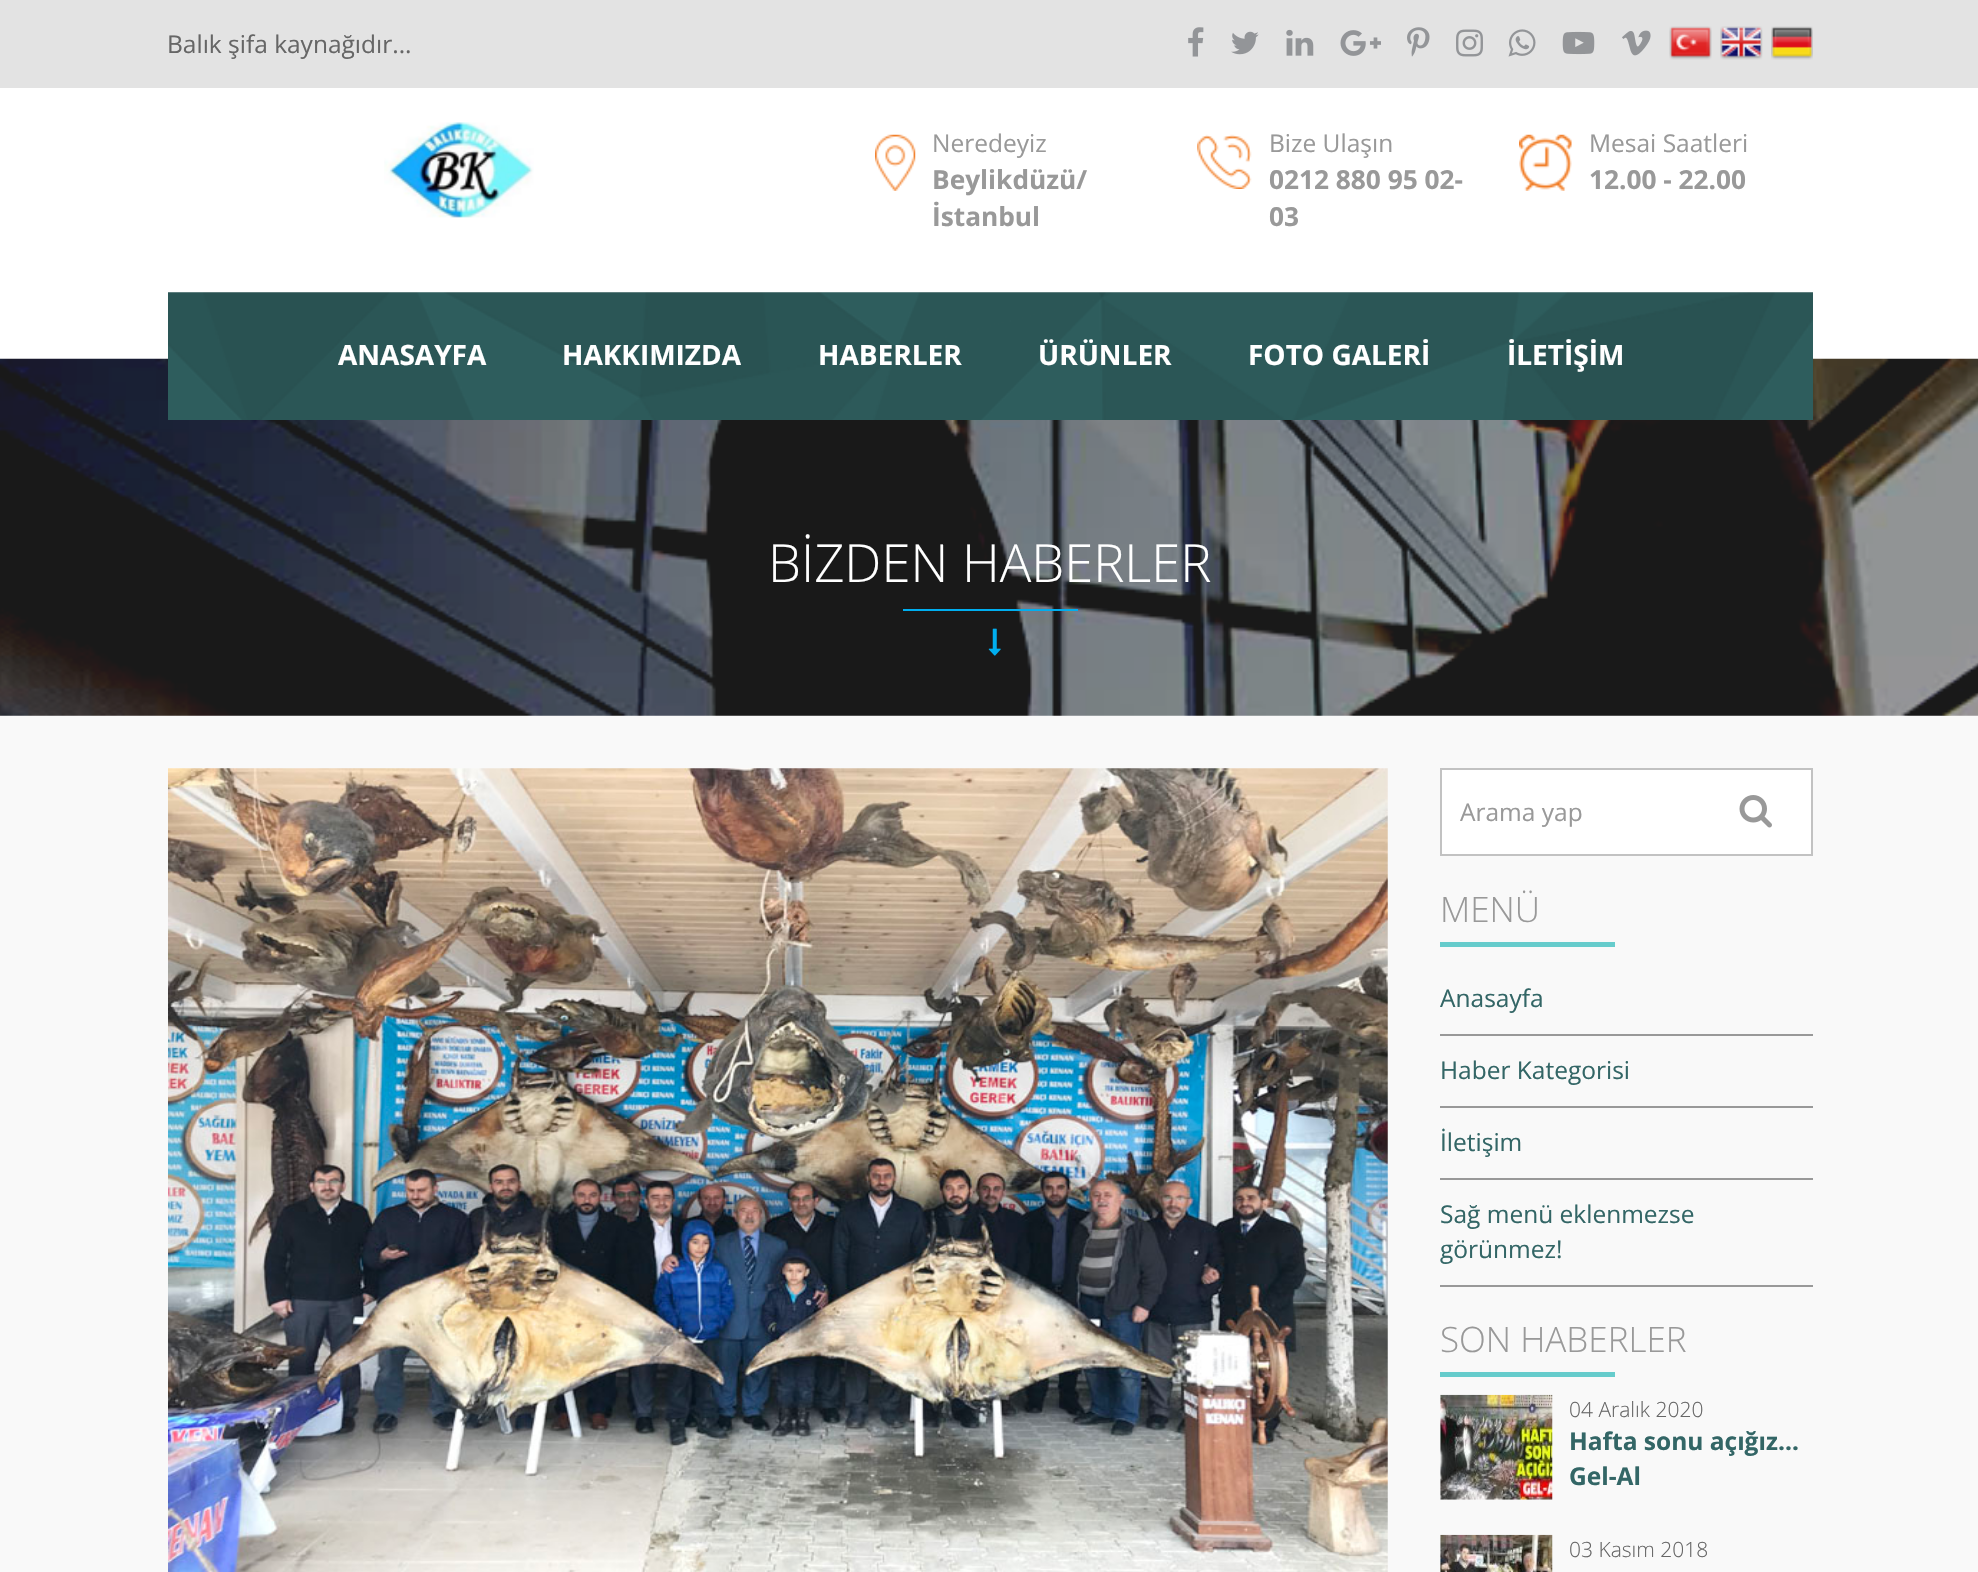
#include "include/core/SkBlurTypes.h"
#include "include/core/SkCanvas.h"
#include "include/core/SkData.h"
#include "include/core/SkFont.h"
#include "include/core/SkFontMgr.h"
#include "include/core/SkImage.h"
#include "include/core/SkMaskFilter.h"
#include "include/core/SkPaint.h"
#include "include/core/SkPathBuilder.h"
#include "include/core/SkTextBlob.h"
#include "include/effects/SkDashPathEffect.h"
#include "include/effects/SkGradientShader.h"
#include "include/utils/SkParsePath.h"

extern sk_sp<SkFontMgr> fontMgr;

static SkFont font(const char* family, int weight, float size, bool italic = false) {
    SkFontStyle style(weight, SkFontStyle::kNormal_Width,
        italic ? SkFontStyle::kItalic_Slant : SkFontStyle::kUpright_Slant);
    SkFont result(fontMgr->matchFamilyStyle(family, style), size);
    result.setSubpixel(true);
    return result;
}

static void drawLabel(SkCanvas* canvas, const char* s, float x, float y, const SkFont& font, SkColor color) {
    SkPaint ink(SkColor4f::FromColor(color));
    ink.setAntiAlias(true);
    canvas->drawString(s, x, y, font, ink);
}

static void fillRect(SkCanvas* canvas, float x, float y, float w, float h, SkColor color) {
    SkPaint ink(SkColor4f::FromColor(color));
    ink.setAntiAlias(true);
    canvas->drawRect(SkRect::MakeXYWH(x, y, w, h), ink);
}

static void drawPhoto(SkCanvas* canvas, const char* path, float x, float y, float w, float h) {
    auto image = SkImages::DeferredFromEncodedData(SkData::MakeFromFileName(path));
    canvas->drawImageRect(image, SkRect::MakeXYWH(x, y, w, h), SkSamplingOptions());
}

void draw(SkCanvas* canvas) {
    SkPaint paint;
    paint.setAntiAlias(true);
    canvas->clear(0xFFF9F9F9);
    fillRect(canvas, 0, 88, 1978, 271, 0xFFFFFFFF);
    fillRect(canvas, 0, 0, 1978, 88, 0xFFE3E3E3);
    SkFont font1 = font("Open Sans", 400, 24.5f);
    drawLabel(canvas, "Balık şifa kaynağıdır...", 167, 53, font1, 0xFF666666);
    drawPhoto(canvas, "assets/img1.png", 1188, 27, 16, 30);
    drawPhoto(canvas, "assets/img2.png", 1231, 31, 28, 24);
    drawPhoto(canvas, "assets/img3.png", 1286, 29, 28, 27);
    drawPhoto(canvas, "assets/img4.png", 1340, 30, 41, 26);
    drawPhoto(canvas, "assets/img5.png", 1407, 27, 23, 30);
    drawPhoto(canvas, "assets/img6.png", 1456, 29, 27, 28);
    drawPhoto(canvas, "assets/img7.png", 1508, 29, 28, 28);
    drawPhoto(canvas, "assets/img8.png", 1562, 31, 33, 24);
    drawPhoto(canvas, "assets/img9.png", 1622, 30, 29, 26);
    drawPhoto(canvas, "assets/img10.png", 1669, 26, 43, 34);
    drawPhoto(canvas, "assets/img11.png", 1720, 26, 43, 34);
    drawPhoto(canvas, "assets/img12.png", 1771, 26, 42, 34);
    drawPhoto(canvas, "assets/img13.png", 384, 122, 150, 96);
    drawPhoto(canvas, "assets/img14.png", 875, 134, 41, 57);
    drawLabel(canvas, "Neredeyiz", 932, 152, font1, 0xFF999999);
    SkFont font2 = font("Open Sans", 700, 26.25f);
    drawLabel(canvas, "Beylikdüzü/", 932, 189, font2, 0xFF999999);
    drawLabel(canvas, "İstanbul", 932, 226, font2, 0xFF999999);
    drawPhoto(canvas, "assets/img15.png", 1197, 134, 55, 55);
    drawLabel(canvas, "Bize Ulaşın", 1269, 152, font1, 0xFF999999);
    drawLabel(canvas, "0212 880 95 02-", 1269, 189, font2, 0xFF999999);
    drawLabel(canvas, "03", 1269, 226, font2, 0xFF999999);
    drawPhoto(canvas, "assets/img16.png", 1519, 134, 53, 57);
    drawLabel(canvas, "Mesai Saatleri", 1589, 152, font1, 0xFF999999);
    drawLabel(canvas, "12.00 - 22.00", 1589, 189, font2, 0xFF999999);
    drawPhoto(canvas, "assets/img18.png", 0, 358, 1978, 358);
    drawPhoto(canvas, "assets/img17.png", 168, 292, 1645, 128);
    SkFont font3 = font("Open Sans", 700, 28);
    drawLabel(canvas, "ANASAYFA", 338, 365, font3, 0xFFFFFFFF);
    drawLabel(canvas, "HAKKIMIZDA", 562, 365, font3, 0xFFFFFFFF);
    drawLabel(canvas, "HABERLER", 818, 365, font3, 0xFFFFFFFF);
    drawLabel(canvas, "ÜRÜNLER", 1038, 365, font3, 0xFFFFFFFF);
    drawLabel(canvas, "FOTO GALERİ", 1248, 365, font3, 0xFFFFFFFF);
    drawLabel(canvas, "İLETİŞİM", 1507, 365, font3, 0xFFFFFFFF);
    SkFont font4 = font("Open Sans", 300, 52.5f);
    drawLabel(canvas, "BİZDEN HABERLER", 768, 582, font4, 0xFFFFFFFF);
    fillRect(canvas, 903, 609, 175, 2, 0xFF00AEEF);
    drawPhoto(canvas, "assets/img19.png", 988, 628, 13, 28);
    drawPhoto(canvas, "assets/img20.png", 168, 768, 1220, 804);
    paint.setColor(0xFFFFFFFF);
    canvas->drawRect(SkRect::MakeXYWH(1441, 769, 371, 86), paint);
    paint.setStroke(true);
    paint.setStrokeWidth(2);
    paint.setColor(0xFFC2C2C2);
    canvas->drawRect(SkRect::MakeXYWH(1441, 769, 371, 86), paint);
    drawLabel(canvas, "Arama yap", 1460, 821, font1, 0xFF999999);
    drawPhoto(canvas, "assets/img21.png", 1739, 795, 33, 33);
    SkFont font5 = font("Open Sans", 300, 35);
    drawLabel(canvas, "MENÜ", 1440, 922, font5, 0xFF999999);
    fillRect(canvas, 1440, 942, 175, 5, 0xFF66CCCC);
    fillRect(canvas, 1440, 1034, 373, 2, 0xFF999999);
    drawLabel(canvas, "Anasayfa", 1440, 1007, font1, 0xFF336666);
    fillRect(canvas, 1440, 1106, 373, 2, 0xFF999999);
    drawLabel(canvas, "Haber Kategorisi", 1440, 1079, font1, 0xFF336666);
    fillRect(canvas, 1440, 1178, 373, 2, 0xFF999999);
    drawLabel(canvas, "İletişim", 1440, 1151, font1, 0xFF336666);
    fillRect(canvas, 1440, 1285, 373, 2, 0xFF999999);
    drawLabel(canvas, "Sağ menü eklenmezse", 1440, 1223, font1, 0xFF336666);
    drawLabel(canvas, "görünmez!", 1440, 1258, font1, 0xFF336666);
    drawLabel(canvas, "SON HABERLER", 1440, 1352, font5, 0xFF999999);
    fillRect(canvas, 1440, 1372, 175, 5, 0xFF66CCCC);
    drawPhoto(canvas, "assets/img22.png", 1440, 1394, 113, 106);
    SkFont font6 = font("Open Sans", 300, 21);
    drawLabel(canvas, "04 Aralık 2020", 1569, 1417, font6, 0xFF666666);
    SkFont font7 = font("Open Sans", 700, 24.5f);
    drawLabel(canvas, "Hafta sonu açığız…", 1569, 1450, font7, 0xFF336666);
    drawLabel(canvas, "Gel-Al", 1569, 1485, font7, 0xFF336666);
    drawPhoto(canvas, "assets/img23.png", 1440, 1534, 113, 38);
    drawLabel(canvas, "03 Kasım 2018", 1569, 1557, font6, 0xFF666666);
}
